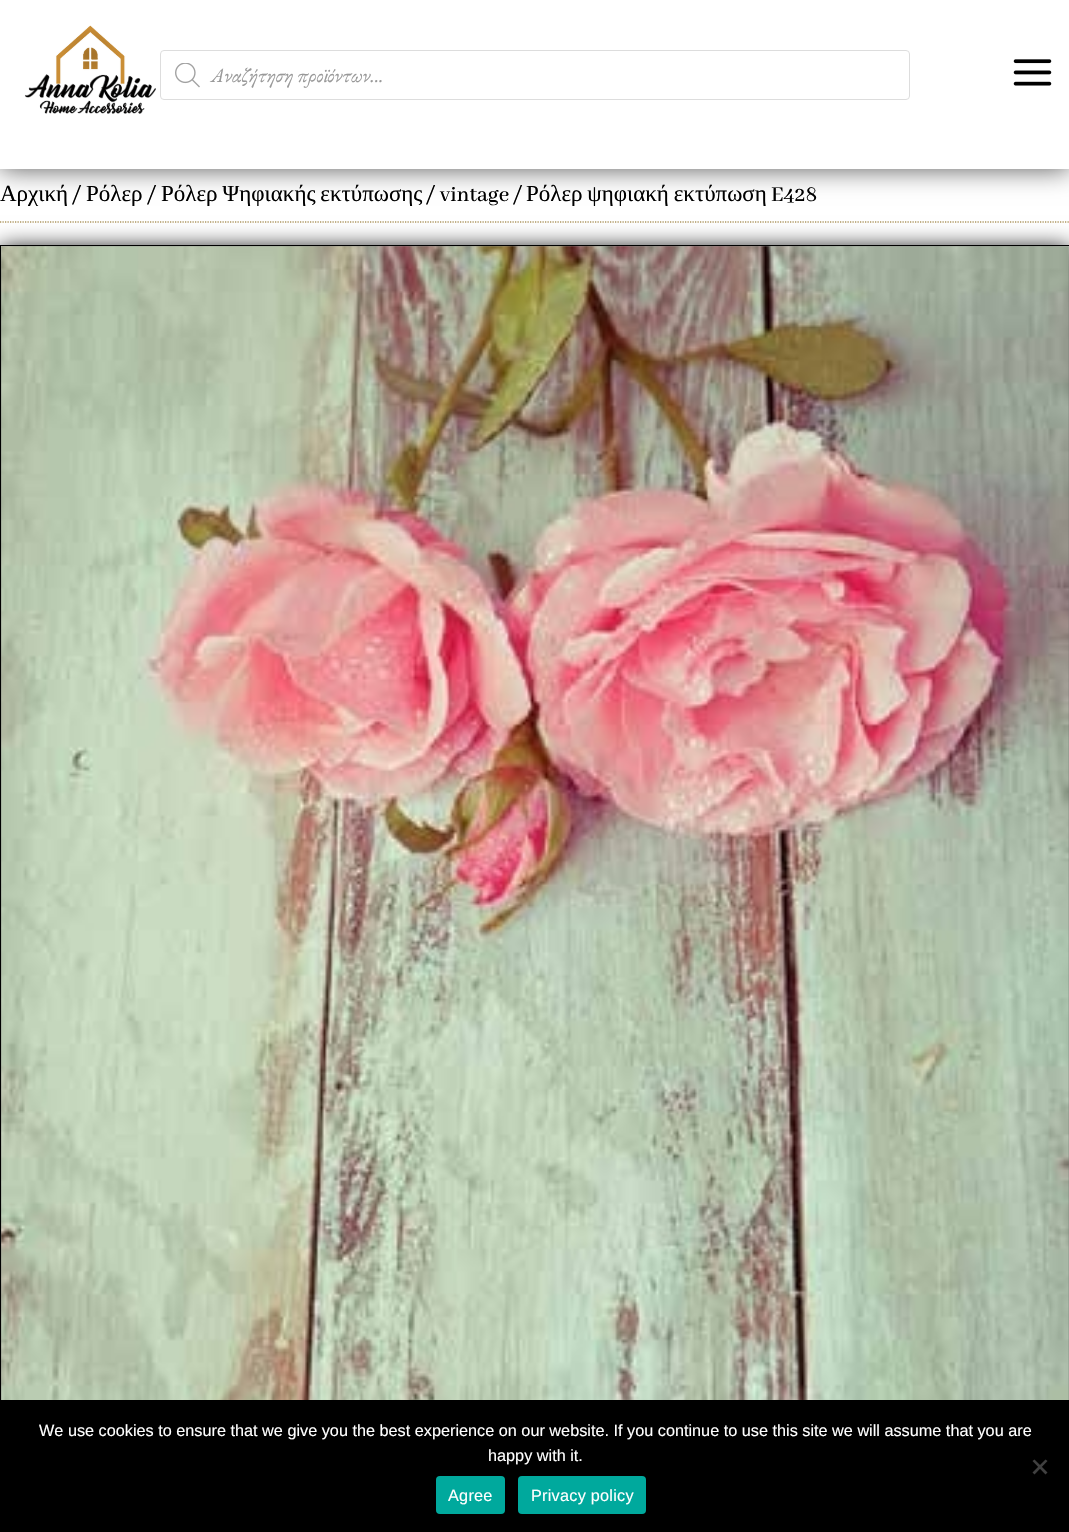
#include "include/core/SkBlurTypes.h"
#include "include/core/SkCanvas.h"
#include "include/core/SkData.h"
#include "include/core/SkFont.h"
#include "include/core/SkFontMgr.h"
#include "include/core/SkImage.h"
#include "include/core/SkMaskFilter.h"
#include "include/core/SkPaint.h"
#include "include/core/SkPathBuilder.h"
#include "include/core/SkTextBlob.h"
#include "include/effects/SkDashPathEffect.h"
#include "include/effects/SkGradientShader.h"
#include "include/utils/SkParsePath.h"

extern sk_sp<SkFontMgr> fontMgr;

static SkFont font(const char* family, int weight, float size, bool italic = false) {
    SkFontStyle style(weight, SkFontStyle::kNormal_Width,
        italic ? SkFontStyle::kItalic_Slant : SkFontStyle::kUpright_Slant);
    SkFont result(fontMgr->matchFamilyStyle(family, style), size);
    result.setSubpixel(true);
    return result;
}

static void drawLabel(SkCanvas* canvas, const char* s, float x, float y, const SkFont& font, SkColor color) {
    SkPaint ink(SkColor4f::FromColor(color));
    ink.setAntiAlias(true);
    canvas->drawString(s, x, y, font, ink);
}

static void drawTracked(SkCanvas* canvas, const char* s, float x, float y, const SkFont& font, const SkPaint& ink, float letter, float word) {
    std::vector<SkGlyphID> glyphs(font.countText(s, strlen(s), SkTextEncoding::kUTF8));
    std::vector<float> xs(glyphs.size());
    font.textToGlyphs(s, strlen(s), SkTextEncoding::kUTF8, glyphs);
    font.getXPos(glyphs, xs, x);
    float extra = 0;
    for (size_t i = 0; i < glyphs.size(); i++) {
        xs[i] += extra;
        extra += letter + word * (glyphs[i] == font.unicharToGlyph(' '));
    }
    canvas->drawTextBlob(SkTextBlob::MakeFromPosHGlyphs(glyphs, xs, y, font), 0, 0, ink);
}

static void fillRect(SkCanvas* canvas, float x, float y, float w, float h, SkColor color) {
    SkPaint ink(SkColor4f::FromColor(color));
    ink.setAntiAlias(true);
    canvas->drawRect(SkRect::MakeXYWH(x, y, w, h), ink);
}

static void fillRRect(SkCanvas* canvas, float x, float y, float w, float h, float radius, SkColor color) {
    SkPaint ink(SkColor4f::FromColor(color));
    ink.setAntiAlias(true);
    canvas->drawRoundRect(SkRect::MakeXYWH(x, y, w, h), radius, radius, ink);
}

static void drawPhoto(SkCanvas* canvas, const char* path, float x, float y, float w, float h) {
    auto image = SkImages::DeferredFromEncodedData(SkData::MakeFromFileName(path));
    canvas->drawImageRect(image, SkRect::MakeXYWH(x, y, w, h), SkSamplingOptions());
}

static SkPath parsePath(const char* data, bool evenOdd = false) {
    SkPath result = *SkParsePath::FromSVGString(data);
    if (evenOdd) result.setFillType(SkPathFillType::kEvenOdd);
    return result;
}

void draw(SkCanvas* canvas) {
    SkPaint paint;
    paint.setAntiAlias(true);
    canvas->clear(0xFFFFFFFF);
    paint.setColor(0xA8000000);
    paint.setMaskFilter(SkMaskFilter::MakeBlur(kNormal_SkBlurStyle, 12.5f));
    canvas->drawRect(SkRect::MakeXYWH(0, 0, 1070, 169), paint);
    paint.setMaskFilter(nullptr);
    fillRect(canvas, 0, 0, 1069, 169, 0xFFFFFFFF);
    drawPhoto(canvas, "assets/img1.png", 24, 25, 132, 89);
    drawPhoto(canvas, "assets/img2.png", 1013, 59, 39, 27);
    paint.setStroke(true);
    paint.setStrokeWidth(1);
    paint.setColor(0xFFDDDDDD);
    canvas->drawRoundRect(SkRect::MakeXYWH(160.5f, 50.5f, 749, 49), 3.5f, 3.5f, paint);
    drawPhoto(canvas, "assets/img3.png", 175, 63, 25, 25);
    SkFont font1 = font("EB Garamond", 400, 20, true);
    drawLabel(canvas, "Αναζήτηση προϊόντων...", 211, 82, font1, 0xFF999999);
    paint.setStrokeWidth(1.2f);
    paint.setColor(0xFF886611);
    paint.setPathEffect(SkDashPathEffect::Make({{1.25f, 1.25f}}, 0));
    canvas->drawPath(parsePath("M0 222H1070"), paint);
    paint.setPathEffect(nullptr);
    SkFont font2 = font("Liberation Serif", 400, 23);
    drawLabel(canvas, "Αρχική", 0, 201, font2, 0xFF000000);
    SkFont font3 = font("Abhaya Libre Medium", 500, 23);
    drawLabel(canvas, "/", 72, 201, font3, 0xFF000000);
    drawLabel(canvas, "Ρόλερ", 86, 201, font2, 0xFF000000);
    drawLabel(canvas, "/", 147, 201, font3, 0xFF000000);
    paint.setStroke(false);
    paint.setColor(0xFF000000);
    drawTracked(canvas, "Ρόλερ Ψηφιακής εκτύπωσης", 161, 201, font2, paint, 0, -1);
    drawLabel(canvas, "/ vintage", 426, 201, font3, 0xFF000000);
    drawLabel(canvas, "/", 513, 201, font3, 0xFF000000);
    drawTracked(canvas, "Ρόλερ ψηφιακή εκτύπωση", 526, 201, font2, paint, 0, -1);
    drawLabel(canvas, "E428", 771, 201, font3, 0xFF000000);
    paint.setMaskFilter(SkMaskFilter::MakeBlur(kNormal_SkBlurStyle, 11));
    canvas->drawRect(SkRect::MakeXYWH(0, 248, 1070, 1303), paint);
    paint.setMaskFilter(nullptr);
    paint.setStroke(true);
    paint.setStrokeWidth(1);
    canvas->drawRect(SkRect::MakeXYWH(0.5f, 245.5f, 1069, 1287), paint);
    drawPhoto(canvas, "assets/img4.png", 1, 246, 1068, 1154);
    fillRect(canvas, 1, 1400, 1068, 132, 0xFF000000);
    SkFont font4 = font("Liberation Sans", 400, 16.25f);
    drawLabel(canvas, "We use cookies to ensure that we give you the best experience on our website. If you continue to use this site we will assume that you are", 39, 1436, font4, 0xFFFFFFFF);
    drawLabel(canvas, "happy with it.", 488, 1461, font4, 0xFFFFFFFF);
    paint.setStroke(false);
    paint.setColor(0xFF404040);
    canvas->drawPath(parsePath("M1045.5 1459.5L1047.5 1461L1034.5 1474.5L1032.5 1472.5Z"), paint);
    canvas->drawPath(parsePath("M1032.5 1461L1034.5 1459.5L1047.5 1472.5L1045.5 1474.5Z"), paint);
    fillRRect(canvas, 436, 1476, 69, 38, 4, 0xFF00A99D);
    paint.setColor(0xFFFFFFFF);
    drawTracked(canvas, "Agree", 448, 1501, font4, paint, 0.25f, 0);
    fillRRect(canvas, 518, 1476, 128, 38, 4, 0xFF00A99D);
    drawTracked(canvas, "Privacy policy", 531, 1501, font4, paint, 0.25f, 0);
}
